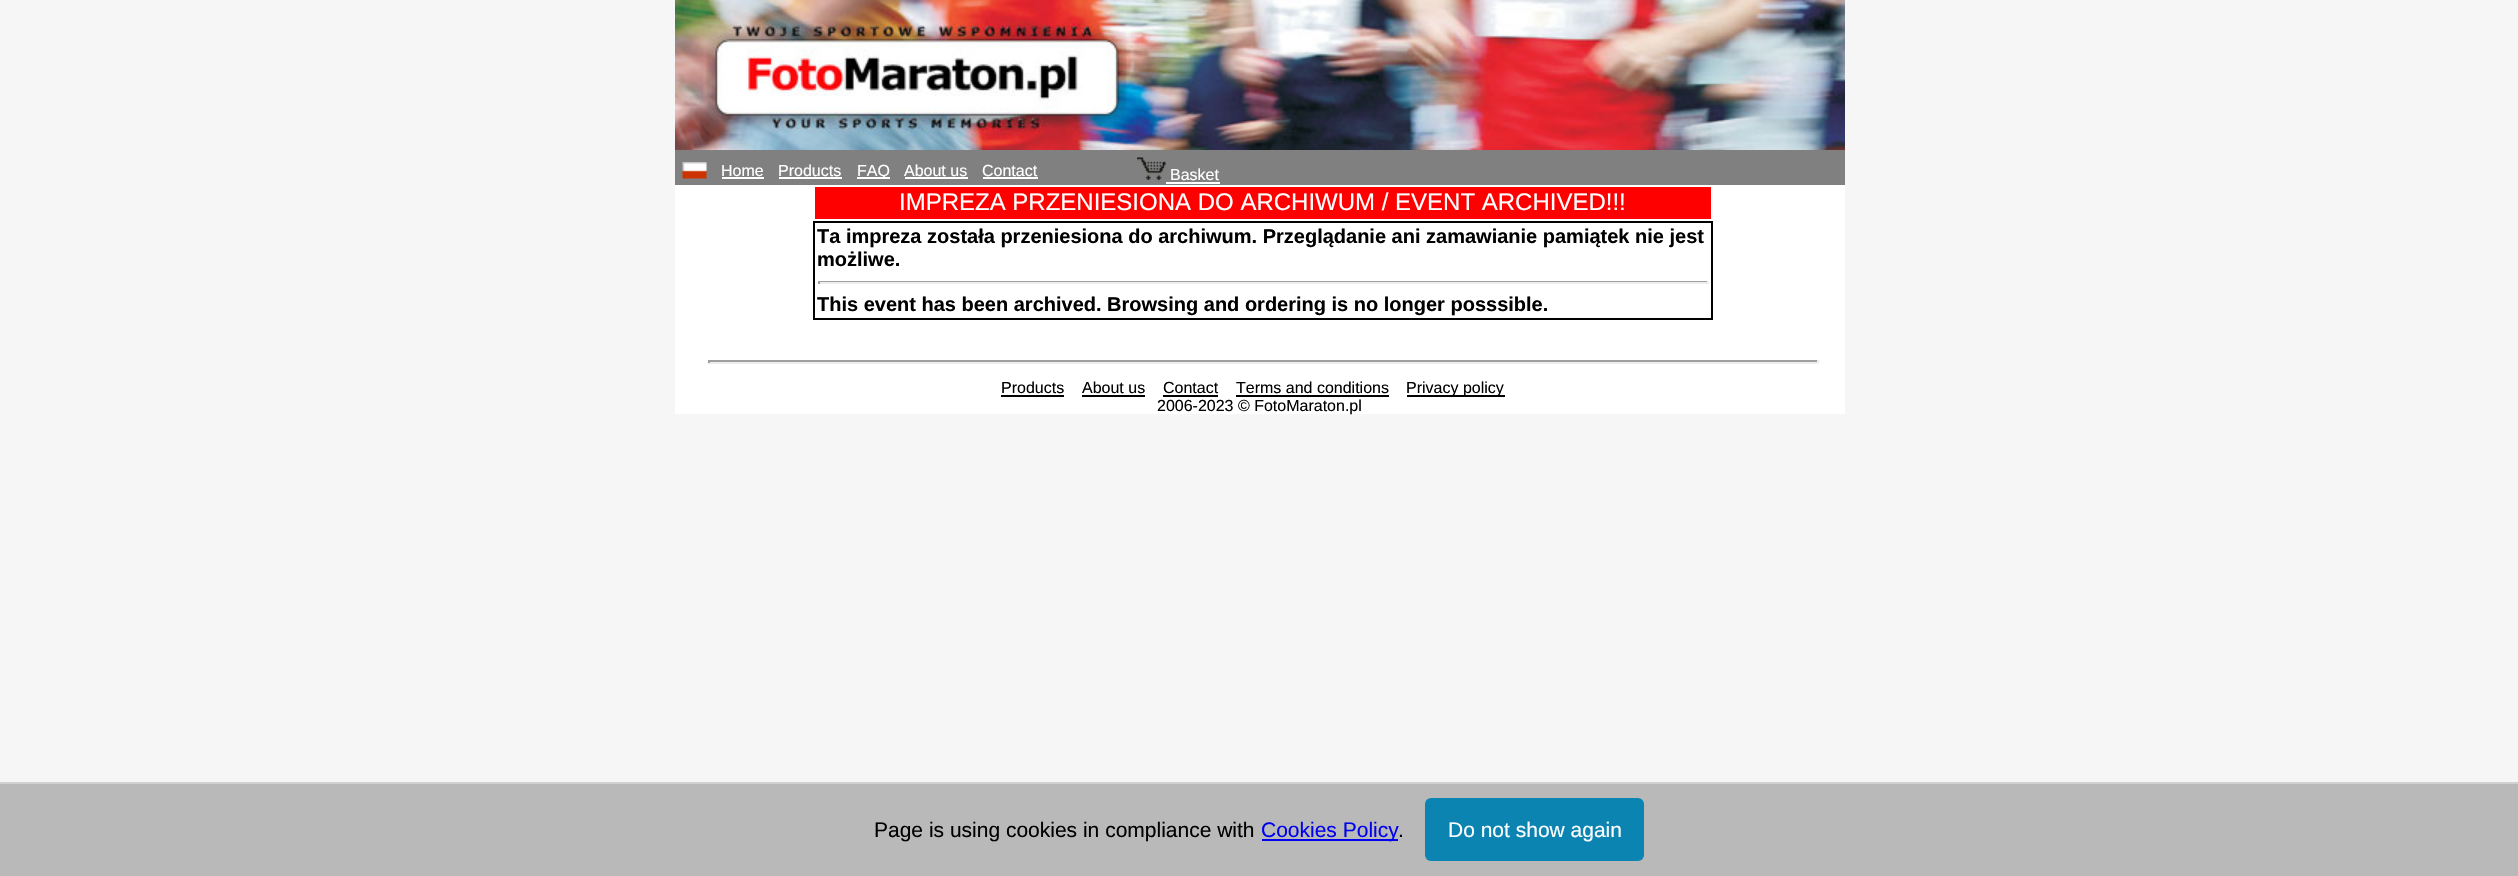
#include "include/core/SkBlurTypes.h"
#include "include/core/SkCanvas.h"
#include "include/core/SkData.h"
#include "include/core/SkFont.h"
#include "include/core/SkFontMgr.h"
#include "include/core/SkImage.h"
#include "include/core/SkMaskFilter.h"
#include "include/core/SkPaint.h"
#include "include/core/SkPathBuilder.h"
#include "include/core/SkTextBlob.h"
#include "include/effects/SkDashPathEffect.h"
#include "include/effects/SkGradientShader.h"
#include "include/utils/SkParsePath.h"

extern sk_sp<SkFontMgr> fontMgr;

static SkFont font(const char* family, int weight, float size, bool italic = false) {
    SkFontStyle style(weight, SkFontStyle::kNormal_Width,
        italic ? SkFontStyle::kItalic_Slant : SkFontStyle::kUpright_Slant);
    SkFont result(fontMgr->matchFamilyStyle(family, style), size);
    result.setSubpixel(true);
    return result;
}

static void drawLabel(SkCanvas* canvas, const char* s, float x, float y, const SkFont& font, SkColor color) {
    SkPaint ink(SkColor4f::FromColor(color));
    ink.setAntiAlias(true);
    canvas->drawString(s, x, y, font, ink);
}

static void fillRect(SkCanvas* canvas, float x, float y, float w, float h, SkColor color) {
    SkPaint ink(SkColor4f::FromColor(color));
    ink.setAntiAlias(true);
    canvas->drawRect(SkRect::MakeXYWH(x, y, w, h), ink);
}

static void fillRRect(SkCanvas* canvas, float x, float y, float w, float h, float radius, SkColor color) {
    SkPaint ink(SkColor4f::FromColor(color));
    ink.setAntiAlias(true);
    canvas->drawRoundRect(SkRect::MakeXYWH(x, y, w, h), radius, radius, ink);
}

static void drawPhoto(SkCanvas* canvas, const char* path, float x, float y, float w, float h) {
    auto image = SkImages::DeferredFromEncodedData(SkData::MakeFromFileName(path));
    canvas->drawImageRect(image, SkRect::MakeXYWH(x, y, w, h), SkSamplingOptions());
}

void draw(SkCanvas* canvas) {
    SkPaint paint;
    paint.setAntiAlias(true);
    canvas->clear(0xFFF6F6F6);
    fillRect(canvas, 675, 185, 1170, 229, 0xFFFFFFFF);
    drawPhoto(canvas, "assets/img1.png", 675, 0, 1170, 150);
    fillRect(canvas, 675, 150, 1170, 35, 0xFF808080);
    drawPhoto(canvas, "assets/img2.png", 682, 162, 25, 17);
    SkFont font1 = font("Liberation Sans", 400, 16);
    drawLabel(canvas, "Home", 721, 176, font1, 0xFFFFFFFF);
    fillRect(canvas, 722, 177, 42, 2, 0xFFFFFFFF);
    drawLabel(canvas, "Products", 778, 176, font1, 0xFFFFFFFF);
    fillRect(canvas, 779, 177, 63, 2, 0xFFFFFFFF);
    fillRect(canvas, 857, 177, 33, 2, 0xFFFFFFFF);
    drawLabel(canvas, "FAQ", 857, 176, font1, 0xFFFFFFFF);
    drawLabel(canvas, "About us", 904, 176, font1, 0xFFFFFFFF);
    fillRect(canvas, 905, 177, 63, 2, 0xFFFFFFFF);
    drawLabel(canvas, "Contact", 982, 176, font1, 0xFFFFFFFF);
    fillRect(canvas, 983, 177, 55, 2, 0xFFFFFFFF);
    drawPhoto(canvas, "assets/img3.png", 1137, 157, 29, 23);
    drawLabel(canvas, "Basket", 1170, 180, font1, 0xFFFFFFFF);
    fillRect(canvas, 1166, 182, 54, 2, 0xFFFFFFFF);
    fillRect(canvas, 815, 187, 896, 32, 0xFFFF0000);
    SkFont font2 = font("Liberation Sans", 400, 24);
    drawLabel(canvas, "IMPREZA PRZENIESIONA DO ARCHIWUM / EVENT ARCHIVED!!!", 899, 210, font2, 0xFFFFFFFF);
    paint.setStroke(true);
    paint.setStrokeWidth(2);
    paint.setColor(0xFF000000);
    canvas->drawRect(SkRect::MakeXYWH(814, 222, 898, 97), paint);
    SkFont font3 = font("Liberation Sans", 700, 20);
    drawLabel(canvas, "Ta impreza została przeniesiona do archiwum. Przeglądanie ani zamawianie pamiątek nie jest", 817, 243, font3, 0xFF000000);
    drawLabel(canvas, "możliwe.", 817, 266, font3, 0xFF000000);
    fillRect(canvas, 818, 281, 891, 1, 0xFF9F9F9F);
    fillRect(canvas, 1707, 281, 2, 3, 0xFFEEEEEE);
    fillRect(canvas, 818, 282, 891, 2, 0xFFEEEEEE);
    fillRect(canvas, 818, 281, 2, 3, 0xFF9F9F9F);
    drawLabel(canvas, "This event has been archived. Browsing and ordering is no longer posssible.", 817, 311, font3, 0xFF000000);
    fillRect(canvas, 708, 360, 1110, 2, 0xFF9F9F9F);
    fillRect(canvas, 1817, 360, 2, 3, 0xFFEEEEEE);
    fillRect(canvas, 708, 362, 1110, 2, 0xFFEEEEEE);
    fillRect(canvas, 708, 360, 2, 3, 0xFF9F9F9F);
    drawLabel(canvas, "Products", 1001, 393, font1, 0xFF000000);
    fillRect(canvas, 1001, 395, 63, 2, 0xFF000000);
    drawLabel(canvas, "About us", 1082, 393, font1, 0xFF000000);
    fillRect(canvas, 1082, 395, 63, 2, 0xFF000000);
    drawLabel(canvas, "Contact", 1163, 393, font1, 0xFF000000);
    fillRect(canvas, 1163, 395, 55, 2, 0xFF000000);
    drawLabel(canvas, "Terms and conditions", 1236, 393, font1, 0xFF000000);
    fillRect(canvas, 1236, 395, 153, 2, 0xFF000000);
    fillRect(canvas, 1407, 395, 98, 2, 0xFF000000);
    drawLabel(canvas, "Privacy policy", 1406, 393, font1, 0xFF000000);
    drawLabel(canvas, "2006-2023 © FotoMaraton.pl", 1157, 411, font1, 0xFF000000);
    fillRect(canvas, 0, 784, 2518, 92, 0xFFB9B9B9);
    fillRect(canvas, 0, 782, 2518, 2, 0xFFD3D0D0);
    SkFont font4 = font("Liberation Sans", 400, 21);
    drawLabel(canvas, "Page is using cookies in compliance with", 874, 837, font4, 0xFF000000);
    fillRect(canvas, 1262, 839, 136, 2, 0xFF0000EE);
    drawLabel(canvas, "Cookies Policy", 1261, 837, font4, 0xFF0000EE);
    drawLabel(canvas, ".", 1398, 837, font4, 0xFF000000);
    fillRRect(canvas, 1425, 798, 219, 63, 6, 0xFF0B84B2);
    drawLabel(canvas, "Do not show again", 1448, 837, font4, 0xFFFFFFFF);
}
